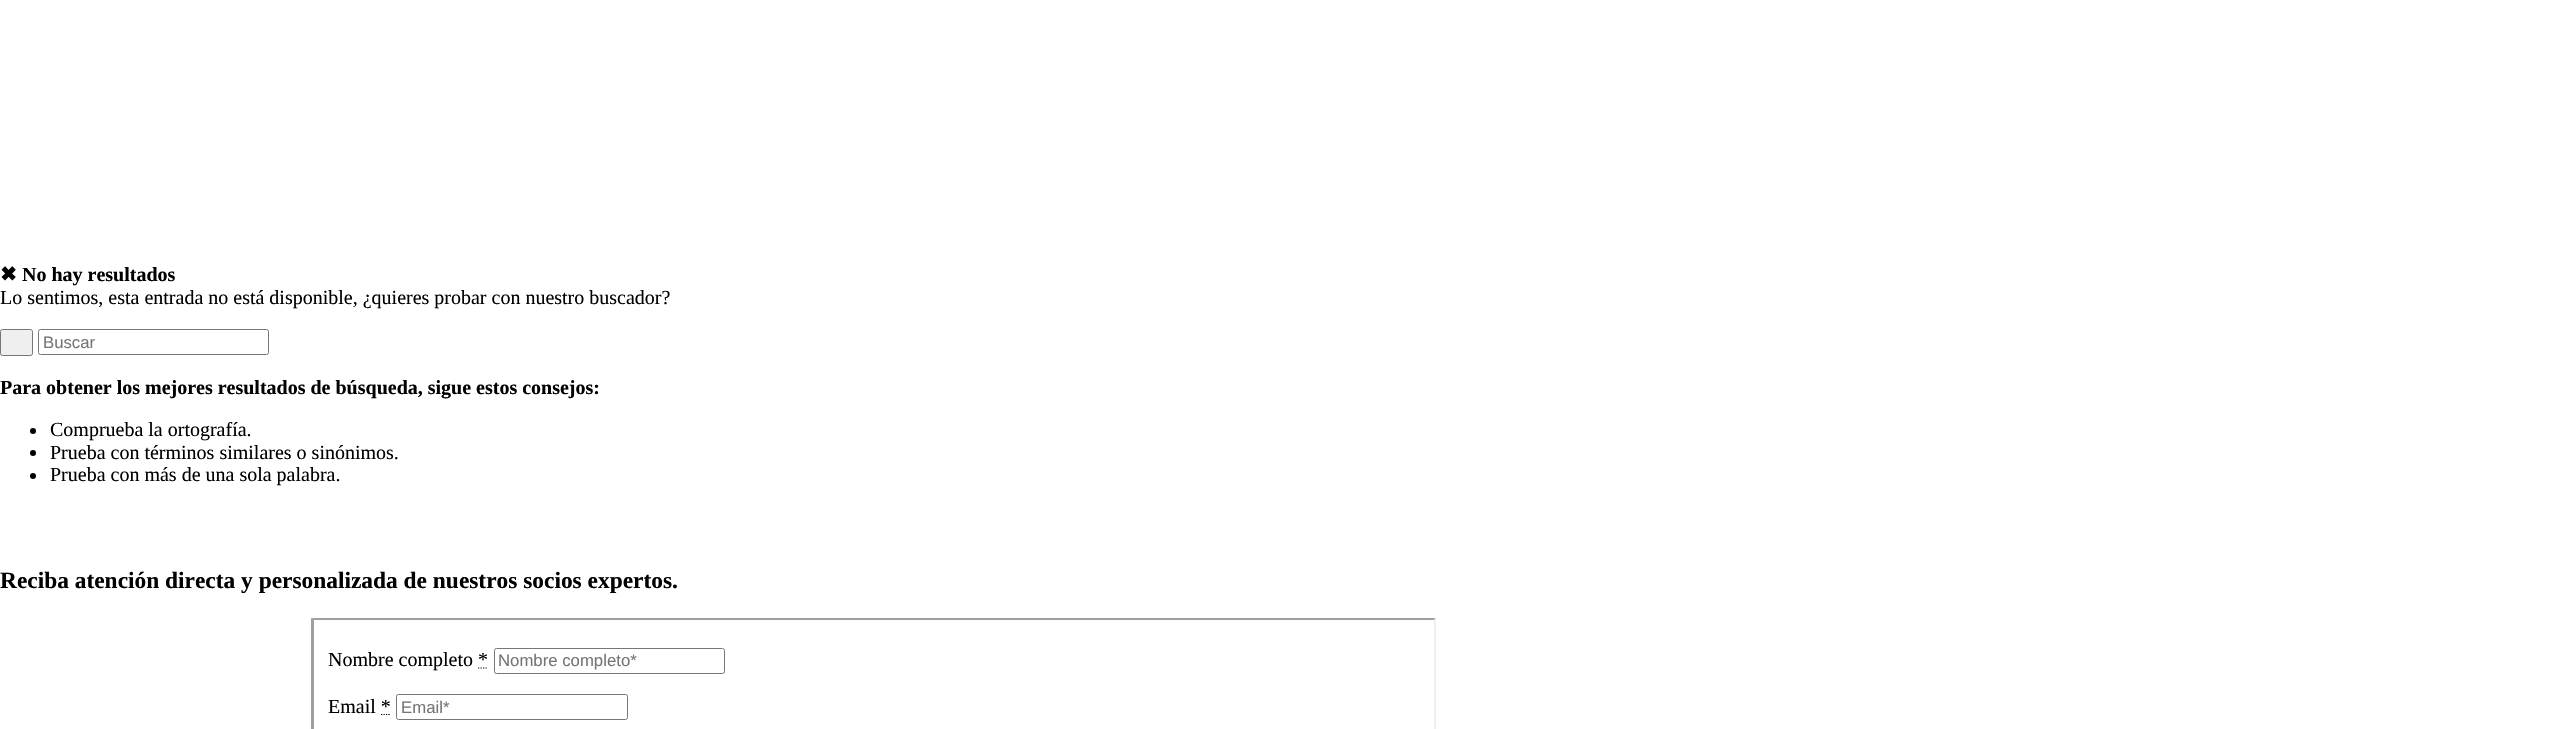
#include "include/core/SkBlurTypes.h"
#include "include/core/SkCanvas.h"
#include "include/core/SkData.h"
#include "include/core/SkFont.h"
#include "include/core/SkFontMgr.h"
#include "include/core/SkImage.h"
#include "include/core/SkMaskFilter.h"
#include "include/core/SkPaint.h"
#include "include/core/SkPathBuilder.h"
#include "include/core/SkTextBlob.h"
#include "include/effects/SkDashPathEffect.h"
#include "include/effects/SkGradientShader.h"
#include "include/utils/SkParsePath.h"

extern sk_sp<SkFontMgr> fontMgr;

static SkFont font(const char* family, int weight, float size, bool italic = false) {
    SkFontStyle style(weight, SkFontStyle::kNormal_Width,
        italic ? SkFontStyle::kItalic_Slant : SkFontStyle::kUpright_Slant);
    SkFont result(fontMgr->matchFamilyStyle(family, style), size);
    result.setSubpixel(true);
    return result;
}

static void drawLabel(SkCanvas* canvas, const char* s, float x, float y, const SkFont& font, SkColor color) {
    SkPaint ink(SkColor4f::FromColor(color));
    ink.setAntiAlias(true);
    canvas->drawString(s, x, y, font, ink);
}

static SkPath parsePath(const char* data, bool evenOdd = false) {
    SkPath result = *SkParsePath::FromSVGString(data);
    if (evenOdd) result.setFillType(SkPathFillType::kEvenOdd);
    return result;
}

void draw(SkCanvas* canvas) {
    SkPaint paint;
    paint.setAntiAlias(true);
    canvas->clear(0xFFFFFFFF);
    SkFont font1 = font("DejaVu Sans", 700, 20);
    drawLabel(canvas, "✖", 0, 281, font1, 0xFF000000);
    SkFont font2 = font("Liberation Serif", 700, 20);
    drawLabel(canvas, "No hay resultados", 22, 281, font2, 0xFF000000);
    SkFont font3 = font("Liberation Serif", 400, 20);
    drawLabel(canvas, "Lo sentimos, esta entrada no está disponible, ¿quieres probar con nuestro buscador?", 0, 304, font3, 0xFF000000);
    paint.setColor(0xFFEFEFEF);
    canvas->drawRoundRect(SkRect::MakeXYWH(0.5f, 329.5f, 32, 26), 2, 2, paint);
    paint.setStroke(true);
    paint.setStrokeWidth(1);
    paint.setColor(0xFF767676);
    canvas->drawRoundRect(SkRect::MakeXYWH(0.5f, 329.5f, 32, 26), 2, 2, paint);
    canvas->drawRoundRect(SkRect::MakeXYWH(38.5f, 329.5f, 230, 25), 2, 2, paint);
    SkFont font4 = font("Liberation Sans", 400, 16.75f);
    drawLabel(canvas, "Buscar", 43, 348, font4, 0xFF757575);
    drawLabel(canvas, "Para obtener los mejores resultados de búsqueda, sigue estos consejos:", 0, 394, font2, 0xFF000000);
    paint.setStroke(false);
    paint.setColor(0xFF000000);
    canvas->drawCircle(33, 431, 3, paint);
    drawLabel(canvas, "Comprueba la ortografía.", 50, 436, font3, 0xFF000000);
    canvas->drawCircle(33, 453, 3, paint);
    drawLabel(canvas, "Prueba con términos similares o sinónimos.", 50, 459, font3, 0xFF000000);
    canvas->drawCircle(33, 476, 3, paint);
    drawLabel(canvas, "Prueba con más de una sola palabra.", 50, 481, font3, 0xFF000000);
    SkFont font5 = font("Liberation Serif", 700, 23.4f);
    drawLabel(canvas, "Reciba atención directa y personalizada de nuestros socios expertos.", 0, 588, font5, 0xFF000000);
    paint.setColor(0xFF9F9F9F);
    canvas->drawPath(parsePath("M311 618H1436L1434 620H314Z"), paint);
    paint.setColor(0xFFEFEFEF);
    canvas->drawPath(parsePath("M1436 618V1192L1434 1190V620Z"), paint);
    paint.setColor(0xFF9F9F9F);
    canvas->drawPath(parsePath("M311 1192V618L314 620V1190Z"), paint);
    drawLabel(canvas, "Nombre completo *", 328, 666, font3, 0xFF000000);
    paint.setStroke(true);
    paint.setStrokeWidth(1.2f);
    paint.setColor(0xFF000000);
    paint.setPathEffect(SkDashPathEffect::Make({{1.25f, 1.25f}}, 0));
    canvas->drawPath(parsePath("M478 668H488"), paint);
    paint.setPathEffect(nullptr);
    paint.setStrokeWidth(1);
    paint.setColor(0xFF767676);
    canvas->drawRoundRect(SkRect::MakeXYWH(494.5f, 648.5f, 230, 25), 2, 2, paint);
    drawLabel(canvas, "Nombre completo*", 498, 666, font4, 0xFF757575);
    drawLabel(canvas, "Email *", 328, 713, font3, 0xFF000000);
    paint.setStrokeWidth(1.2f);
    paint.setColor(0xFF000000);
    paint.setPathEffect(SkDashPathEffect::Make({{1.25f, 1.25f}}, 0));
    canvas->drawPath(parsePath("M381 714.5H391"), paint);
    paint.setPathEffect(nullptr);
    paint.setStrokeWidth(1);
    paint.setColor(0xFF767676);
    canvas->drawRoundRect(SkRect::MakeXYWH(396.5f, 694.5f, 231, 25), 2, 2, paint);
    drawLabel(canvas, "Email*", 401, 713, font4, 0xFF757575);
}
